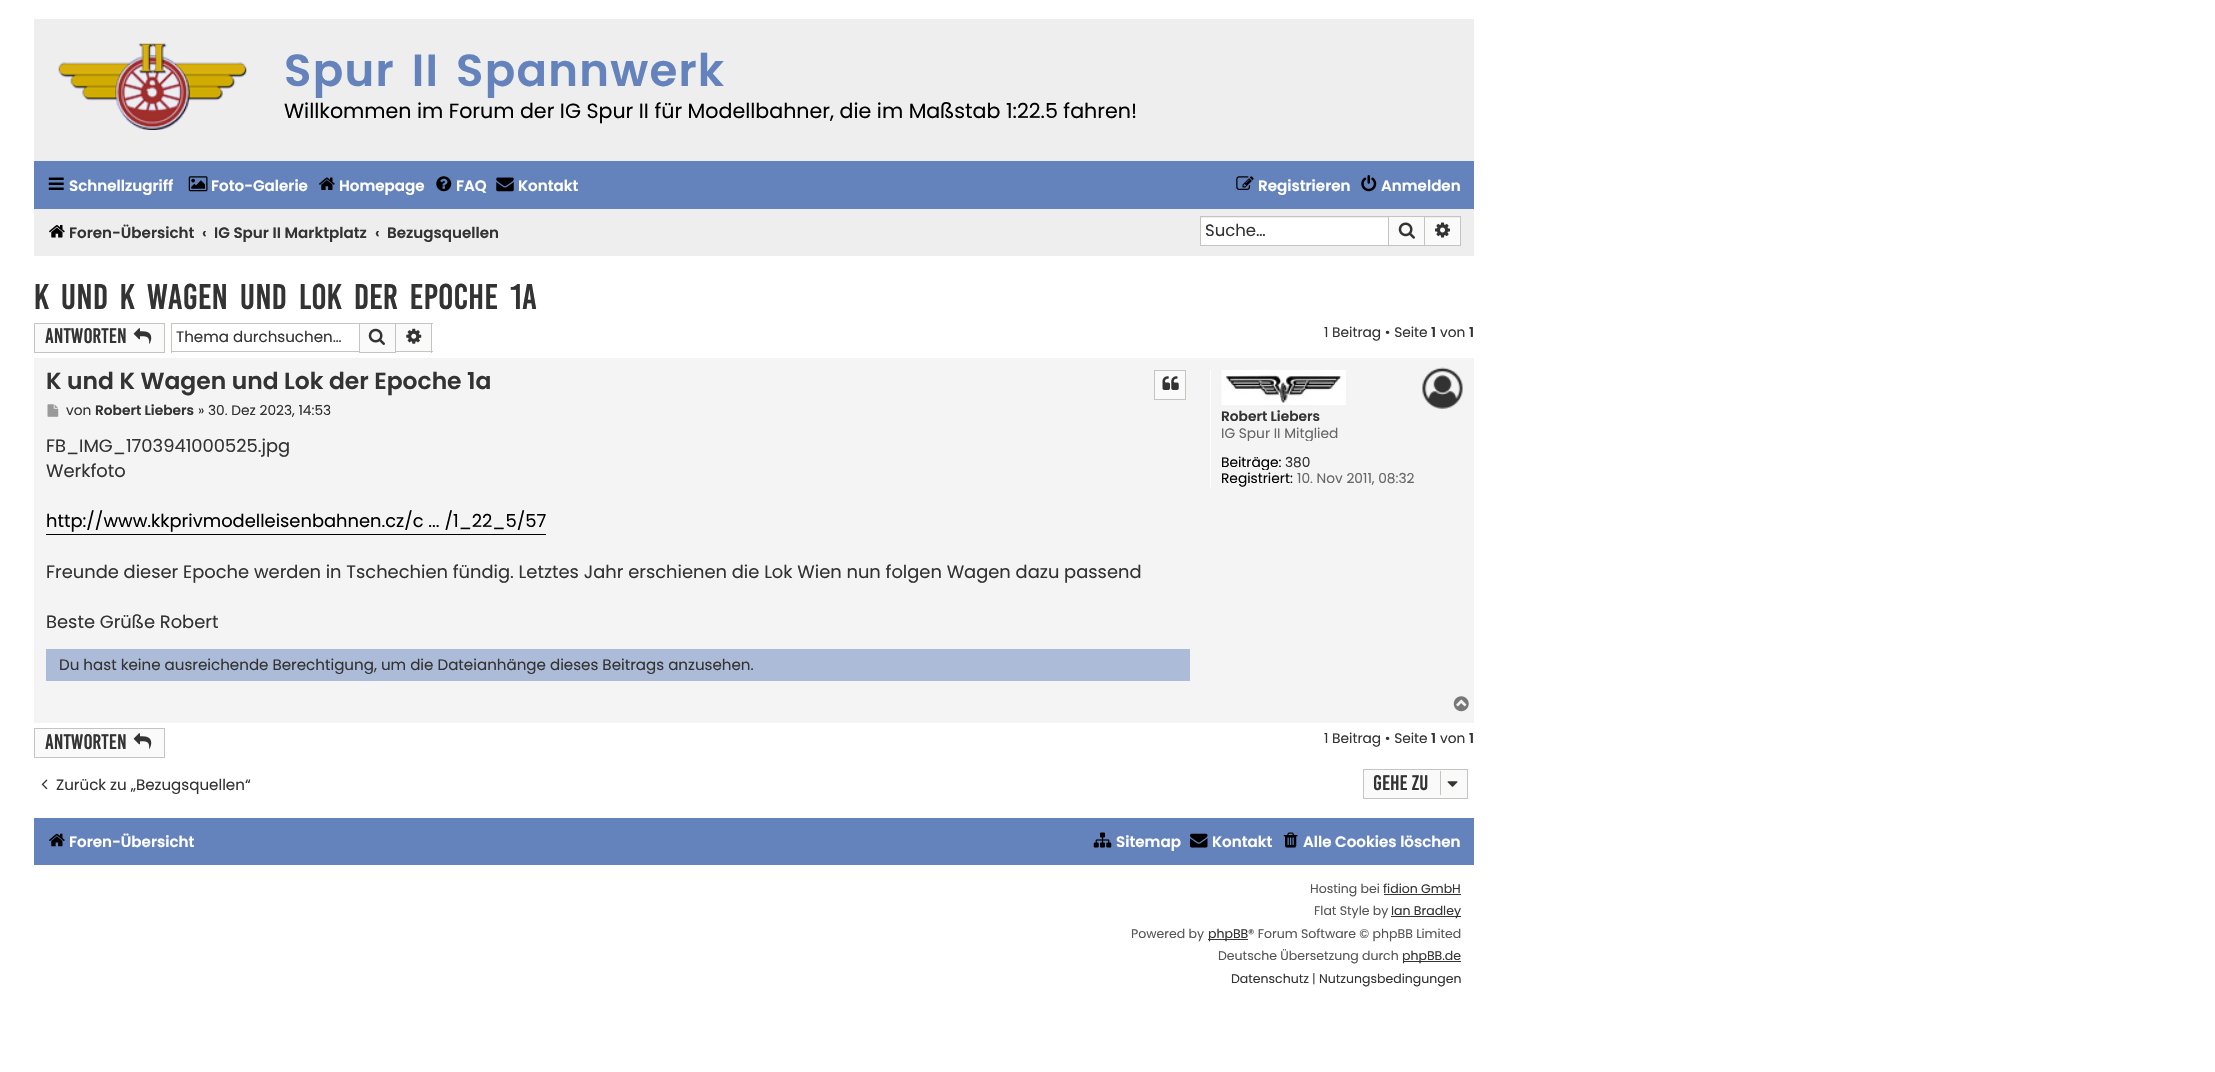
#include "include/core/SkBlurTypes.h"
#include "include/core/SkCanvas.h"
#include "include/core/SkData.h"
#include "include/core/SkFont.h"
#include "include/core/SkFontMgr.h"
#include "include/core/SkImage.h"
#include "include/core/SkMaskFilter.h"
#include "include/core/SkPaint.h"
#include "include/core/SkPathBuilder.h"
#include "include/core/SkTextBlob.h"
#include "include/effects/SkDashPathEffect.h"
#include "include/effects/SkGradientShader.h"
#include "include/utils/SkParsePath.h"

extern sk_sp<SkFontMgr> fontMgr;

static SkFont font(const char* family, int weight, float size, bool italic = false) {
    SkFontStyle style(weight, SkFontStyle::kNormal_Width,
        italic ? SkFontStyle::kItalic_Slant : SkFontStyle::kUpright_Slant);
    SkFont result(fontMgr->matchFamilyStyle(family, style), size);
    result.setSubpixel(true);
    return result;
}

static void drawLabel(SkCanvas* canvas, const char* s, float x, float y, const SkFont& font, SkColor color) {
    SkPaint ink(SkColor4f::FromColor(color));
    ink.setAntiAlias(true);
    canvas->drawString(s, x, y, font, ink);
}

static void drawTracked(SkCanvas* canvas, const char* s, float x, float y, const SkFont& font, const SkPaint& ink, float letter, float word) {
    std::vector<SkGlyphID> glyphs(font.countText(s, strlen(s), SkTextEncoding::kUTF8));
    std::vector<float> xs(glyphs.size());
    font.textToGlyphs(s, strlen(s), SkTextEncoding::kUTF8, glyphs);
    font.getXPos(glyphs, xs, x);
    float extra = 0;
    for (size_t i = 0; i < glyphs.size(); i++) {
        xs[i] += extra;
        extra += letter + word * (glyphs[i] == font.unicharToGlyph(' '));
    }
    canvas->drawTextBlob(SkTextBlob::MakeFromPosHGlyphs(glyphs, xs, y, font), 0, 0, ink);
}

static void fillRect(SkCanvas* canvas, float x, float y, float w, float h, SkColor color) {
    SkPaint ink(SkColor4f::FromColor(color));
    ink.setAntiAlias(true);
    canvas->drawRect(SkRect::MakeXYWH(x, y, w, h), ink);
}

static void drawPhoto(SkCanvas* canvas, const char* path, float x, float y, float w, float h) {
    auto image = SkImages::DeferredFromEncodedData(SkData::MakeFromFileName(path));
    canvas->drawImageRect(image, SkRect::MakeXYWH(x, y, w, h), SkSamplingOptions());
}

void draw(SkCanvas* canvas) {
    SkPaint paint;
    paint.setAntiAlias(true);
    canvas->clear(0xFFFFFFFF);
    fillRect(canvas, 34, 19, 1440, 142, 0xFFEEEEEE);
    drawPhoto(canvas, "assets/img1.png", 58, 43, 189, 87);
    SkFont font1 = font("Poppins", 600, 45);
    paint.setColor(0xFF6482BC);
    drawTracked(canvas, "Spur II", 284, 86, font1, paint, 1.25f, 5);
    drawTracked(canvas, "Spannwerk", 456, 86, font1, paint, 1.25f, 0);
    SkFont font2 = font("Poppins", 400, 20.6f);
    drawLabel(canvas, "Willkommen im Forum der IG Spur II für Modellbahner, die im Maßstab 1:22.5 fahren!", 284, 118, font2, 0xFF000000);
    fillRect(canvas, 34, 161, 1440, 48, 0xFF6482BC);
    drawPhoto(canvas, "assets/img2.png", 48, 177, 16, 13);
    SkFont font3 = font("Poppins", 600, 15.1f);
    drawLabel(canvas, "Schnellzugriff", 69, 191, font3, 0xFFFFFFFF);
    drawPhoto(canvas, "assets/img3.png", 188, 176, 20, 16);
    drawLabel(canvas, "Foto-Galerie", 211, 191, font3, 0xFFFFFFFF);
    drawPhoto(canvas, "assets/img4.png", 319, 177, 16, 13);
    drawLabel(canvas, "Homepage", 339, 191, font3, 0xFFFFFFFF);
    drawPhoto(canvas, "assets/img5.png", 436, 176, 16, 16);
    drawLabel(canvas, "FAQ", 456, 191, font3, 0xFFFFFFFF);
    drawPhoto(canvas, "assets/img6.png", 496, 177, 18, 15);
    drawLabel(canvas, "Kontakt", 518, 191, font3, 0xFFFFFFFF);
    drawPhoto(canvas, "assets/img7.png", 1236, 176, 18, 14);
    drawLabel(canvas, "Registrieren", 1258, 191, font3, 0xFFFFFFFF);
    drawPhoto(canvas, "assets/img8.png", 1361, 175, 16, 17);
    drawLabel(canvas, "Anmelden", 1381, 191, font3, 0xFFFFFFFF);
    fillRect(canvas, 34, 209, 1440, 47, 0xFFEEEEEE);
    drawPhoto(canvas, "assets/img9.png", 49, 225, 16, 13);
    drawLabel(canvas, "Foren-Übersicht", 69, 238, font3, 0xFF333333);
    drawLabel(canvas, "‹", 202, 238, font3, 0xFF333333);
    drawLabel(canvas, "IG Spur II Marktplatz", 214, 238, font3, 0xFF333333);
    drawLabel(canvas, "‹", 375, 238, font3, 0xFF333333);
    drawLabel(canvas, "Bezugsquellen", 387, 238, font3, 0xFF333333);
    fillRect(canvas, 1201, 218, 187, 27, 0xFFFFFFFF);
    fillRect(canvas, 1200, 216, 188, 1, 0xFFC7C3BF);
    fillRect(canvas, 1200, 245, 188, 1, 0xFFC7C3BF);
    fillRect(canvas, 1200, 216, 1, 30, 0xFFC7C3BF);
    SkFont font4 = font("Poppins", 400, 16.5f);
    drawLabel(canvas, "Suche…", 1205, 236, font4, 0xFF333333);
    paint.setColor(0xFFFAFAFA);
    canvas->drawRect(SkRect::MakeXYWH(1388.5f, 216.5f, 36, 29), paint);
    paint.setStroke(true);
    paint.setStrokeWidth(1);
    paint.setColor(0xFFC7C3BF);
    canvas->drawRect(SkRect::MakeXYWH(1388.5f, 216.5f, 36, 29), paint);
    drawPhoto(canvas, "assets/img10.png", 1398, 222, 17, 17);
    fillRect(canvas, 1425, 218, 35, 27, 0xFFFAFAFA);
    fillRect(canvas, 1425, 216, 36, 1, 0xFFC7C3BF);
    fillRect(canvas, 1460, 216, 1, 30, 0xFFC7C3BF);
    fillRect(canvas, 1425, 245, 36, 1, 0xFFC7C3BF);
    drawPhoto(canvas, "assets/img11.png", 1435, 222, 15, 16);
    SkFont font5 = font("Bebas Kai", 400, 27.5f);
    paint.setStroke(false);
    paint.setColor(0xFF333333);
    drawTracked(canvas, "K und K Wagen und Lok der Epoche 1a", 34, 309, font5, paint, 0, 5);
    paint.setColor(0xFFFAFAFA);
    canvas->drawRect(SkRect::MakeXYWH(34.5f, 323.5f, 130, 29), paint);
    paint.setStroke(true);
    paint.setColor(0xFFC7C3BF);
    canvas->drawRect(SkRect::MakeXYWH(34.5f, 323.5f, 130, 29), paint);
    SkFont font6 = font("Bebas Kai", 400, 16.25f);
    drawLabel(canvas, "Antworten", 45, 343, font6, 0xFF333333);
    drawPhoto(canvas, "assets/img12.png", 133, 328, 19, 16);
    fillRect(canvas, 171, 323, 188, 1, 0xFFC7C3BF);
    fillRect(canvas, 171, 351, 188, 1, 0xFFC7C3BF);
    fillRect(canvas, 171, 323, 1, 30, 0xFFC7C3BF);
    SkFont font7 = font("Poppins", 400, 15.1f);
    drawLabel(canvas, "Thema durchsuchen…", 176, 342, font7, 0xFF333333);
    paint.setStroke(false);
    paint.setColor(0xFFFAFAFA);
    canvas->drawRect(SkRect::MakeXYWH(359.5f, 323.5f, 36, 29), paint);
    paint.setStroke(true);
    paint.setColor(0xFFC7C3BF);
    canvas->drawRect(SkRect::MakeXYWH(359.5f, 323.5f, 36, 29), paint);
    drawPhoto(canvas, "assets/img13.png", 368, 328, 17, 17);
    fillRect(canvas, 396, 324, 35, 27, 0xFFFAFAFA);
    fillRect(canvas, 396, 323, 37, 1, 0xFFC7C3BF);
    fillRect(canvas, 431, 323, 1, 30, 0xFFC7C3BF);
    fillRect(canvas, 396, 351, 37, 1, 0xFFC7C3BF);
    drawPhoto(canvas, "assets/img14.png", 406, 328, 16, 16);
    SkFont font8 = font("Poppins", 400, 13.75f);
    drawLabel(canvas, "1 Beitrag • Seite", 1324, 337, font8, 0xFF333333);
    SkFont font9 = font("Poppins", 600, 13.75f);
    drawLabel(canvas, "1", 1431, 337, font9, 0xFF333333);
    drawLabel(canvas, "von", 1440, 337, font8, 0xFF333333);
    drawLabel(canvas, "1", 1469, 337, font9, 0xFF333333);
    fillRect(canvas, 34, 358, 1440, 365, 0xFFF4F4F4);
    drawPhoto(canvas, "assets/img15.png", 1422, 367, 41, 42);
    SkFont font10 = font("Poppins", 600, 23.4f);
    drawLabel(canvas, "K und K Wagen und Lok der Epoche 1a", 46, 389, font10, 0xFF333333);
    paint.setStroke(false);
    paint.setColor(0xFFFAFAFA);
    canvas->drawRect(SkRect::MakeXYWH(1154.5f, 370.5f, 31, 29), paint);
    paint.setStroke(true);
    paint.setColor(0xFFC7C3BF);
    canvas->drawRect(SkRect::MakeXYWH(1154.5f, 370.5f, 31, 29), paint);
    drawPhoto(canvas, "assets/img16.png", 1162, 376, 17, 14);
    drawPhoto(canvas, "assets/img17.png", 47, 404, 12, 13);
    drawLabel(canvas, "von", 66, 415, font8, 0xFF333333);
    drawLabel(canvas, "Robert Liebers", 95, 415, font9, 0xFF333333);
    drawLabel(canvas, "» 30. Dez 2023, 14:53", 198, 415, font8, 0xFF333333);
    SkFont font11 = font("Poppins", 400, 17.88f);
    drawLabel(canvas, "FB_IMG_1703941000525.jpg", 46, 452, font11, 0xFF333333);
    drawLabel(canvas, "Werkfoto", 46, 477, font11, 0xFF333333);
    fillRect(canvas, 46, 534, 500, 1, 0xFF000000);
    drawLabel(canvas, "http://www.kkprivmodelleisenbahnen.cz/c ... /1_22_5/57", 46, 527, font11, 0xFF000000);
    drawLabel(canvas, "Freunde dieser Epoche werden in Tschechien fündig. Letztes Jahr erschienen die Lok Wien nun folgen Wagen dazu passend", 46, 578, font11, 0xFF333333);
    drawLabel(canvas, "Beste Grüße Robert", 46, 628, font11, 0xFF333333);
    fillRect(canvas, 46, 649, 1144, 32, 0xFFACBBD8);
    drawLabel(canvas, "Du hast keine ausreichende Berechtigung, um die Dateianhänge dieses Beitrags anzusehen.", 59, 670, font7, 0xFF333333);
    fillRect(canvas, 1210, 370, 1, 118, 0xFFFFFFFF);
    drawPhoto(canvas, "assets/img18.png", 1221, 370, 125, 35);
    drawLabel(canvas, "Robert Liebers", 1221, 421, font9, 0xFF333333);
    canvas->save();
    canvas->clipRect(SkRect::MakeXYWH(1221, 425, 240, 16));
    drawLabel(canvas, "IG Spur II Mitglied", 1221, 438, font8, 0xFF666666);
    canvas->restore();
    canvas->save();
    canvas->clipRect(SkRect::MakeXYWH(1221, 454, 240, 16));
    drawLabel(canvas, "Beiträge:", 1221, 467, font8, 0xFF000000);
    canvas->restore();
    drawLabel(canvas, "380", 1285, 467, font8, 0xFF333333);
    drawLabel(canvas, "Registriert:", 1221, 483, font8, 0xFF000000);
    drawLabel(canvas, "10. Nov 2011, 08:32", 1297, 483, font8, 0xFF666666);
    drawPhoto(canvas, "assets/img19.png", 1453, 696, 16, 16);
    paint.setStroke(false);
    paint.setColor(0xFFFAFAFA);
    canvas->drawRect(SkRect::MakeXYWH(34.5f, 728.5f, 130, 29), paint);
    paint.setStroke(true);
    paint.setColor(0xFFC7C3BF);
    canvas->drawRect(SkRect::MakeXYWH(34.5f, 728.5f, 130, 29), paint);
    drawLabel(canvas, "Antworten", 45, 749, font6, 0xFF333333);
    drawPhoto(canvas, "assets/img12.png", 133, 733, 19, 16);
    drawLabel(canvas, "1 Beitrag • Seite", 1324, 743, font8, 0xFF333333);
    drawLabel(canvas, "1", 1431, 743, font9, 0xFF333333);
    drawLabel(canvas, "von", 1440, 743, font8, 0xFF333333);
    drawLabel(canvas, "1", 1469, 743, font9, 0xFF333333);
    drawPhoto(canvas, "assets/img20.png", 41, 779, 7, 11);
    drawLabel(canvas, "Zurück zu „Bezugsquellen“", 56, 790, font7, 0xFF333333);
    paint.setStroke(false);
    paint.setColor(0xFFFAFAFA);
    canvas->drawRect(SkRect::MakeXYWH(1363.5f, 769.5f, 104, 29), paint);
    paint.setStroke(true);
    paint.setColor(0xFFC7C3BF);
    canvas->drawRect(SkRect::MakeXYWH(1363.5f, 769.5f, 104, 29), paint);
    drawLabel(canvas, "Gehe zu", 1373, 790, font6, 0xFF333333);
    fillRect(canvas, 1440, 771, 1, 24, 0xFFC7C3BF);
    drawPhoto(canvas, "assets/img21.png", 1447, 781, 11, 6);
    fillRect(canvas, 34, 818, 1440, 47, 0xFF6482BC);
    drawPhoto(canvas, "assets/img22.png", 49, 833, 16, 14);
    drawLabel(canvas, "Foren-Übersicht", 69, 847, font3, 0xFFFFFFFF);
    drawPhoto(canvas, "assets/img23.png", 1093, 832, 19, 16);
    drawLabel(canvas, "Sitemap", 1116, 847, font3, 0xFFFFFFFF);
    drawPhoto(canvas, "assets/img24.png", 1190, 833, 18, 15);
    drawLabel(canvas, "Kontakt", 1212, 847, font3, 0xFFFFFFFF);
    drawPhoto(canvas, "assets/img25.png", 1283, 832, 15, 16);
    drawLabel(canvas, "Alle Cookies löschen", 1303, 847, font3, 0xFFFFFFFF);
    SkFont font12 = font("Poppins", 400, 12.5f);
    drawLabel(canvas, "Hosting bei", 1310, 893, font12, 0xFF555555);
    drawLabel(canvas, "fidion GmbH", 1383, 893, font12, 0xFF333333);
    fillRect(canvas, 1384, 894, 77, 1, 0xFF333333);
    drawLabel(canvas, "Flat Style by", 1314, 915, font12, 0xFF555555);
    fillRect(canvas, 1391, 916, 70, 1, 0xFF333333);
    drawLabel(canvas, "Ian Bradley", 1391, 915, font12, 0xFF333333);
    drawLabel(canvas, "Powered by", 1131, 938, font12, 0xFF555555);
    fillRect(canvas, 1208, 939, 40, 1, 0xFF333333);
    drawLabel(canvas, "phpBB", 1208, 938, font12, 0xFF333333);
    drawLabel(canvas, "® Forum Software © phpBB Limited", 1248, 938, font12, 0xFF555555);
    drawLabel(canvas, "Deutsche Übersetzung durch", 1218, 960, font12, 0xFF555555);
    fillRect(canvas, 1403, 961, 58, 1, 0xFF333333);
    drawLabel(canvas, "phpBB.de", 1402, 960, font12, 0xFF333333);
    drawLabel(canvas, "Datenschutz", 1231, 983, font12, 0xFF333333);
    drawLabel(canvas, "|", 1312, 983, font12, 0xFF555555);
    drawLabel(canvas, "Nutzungsbedingungen", 1319, 983, font12, 0xFF333333);
}
